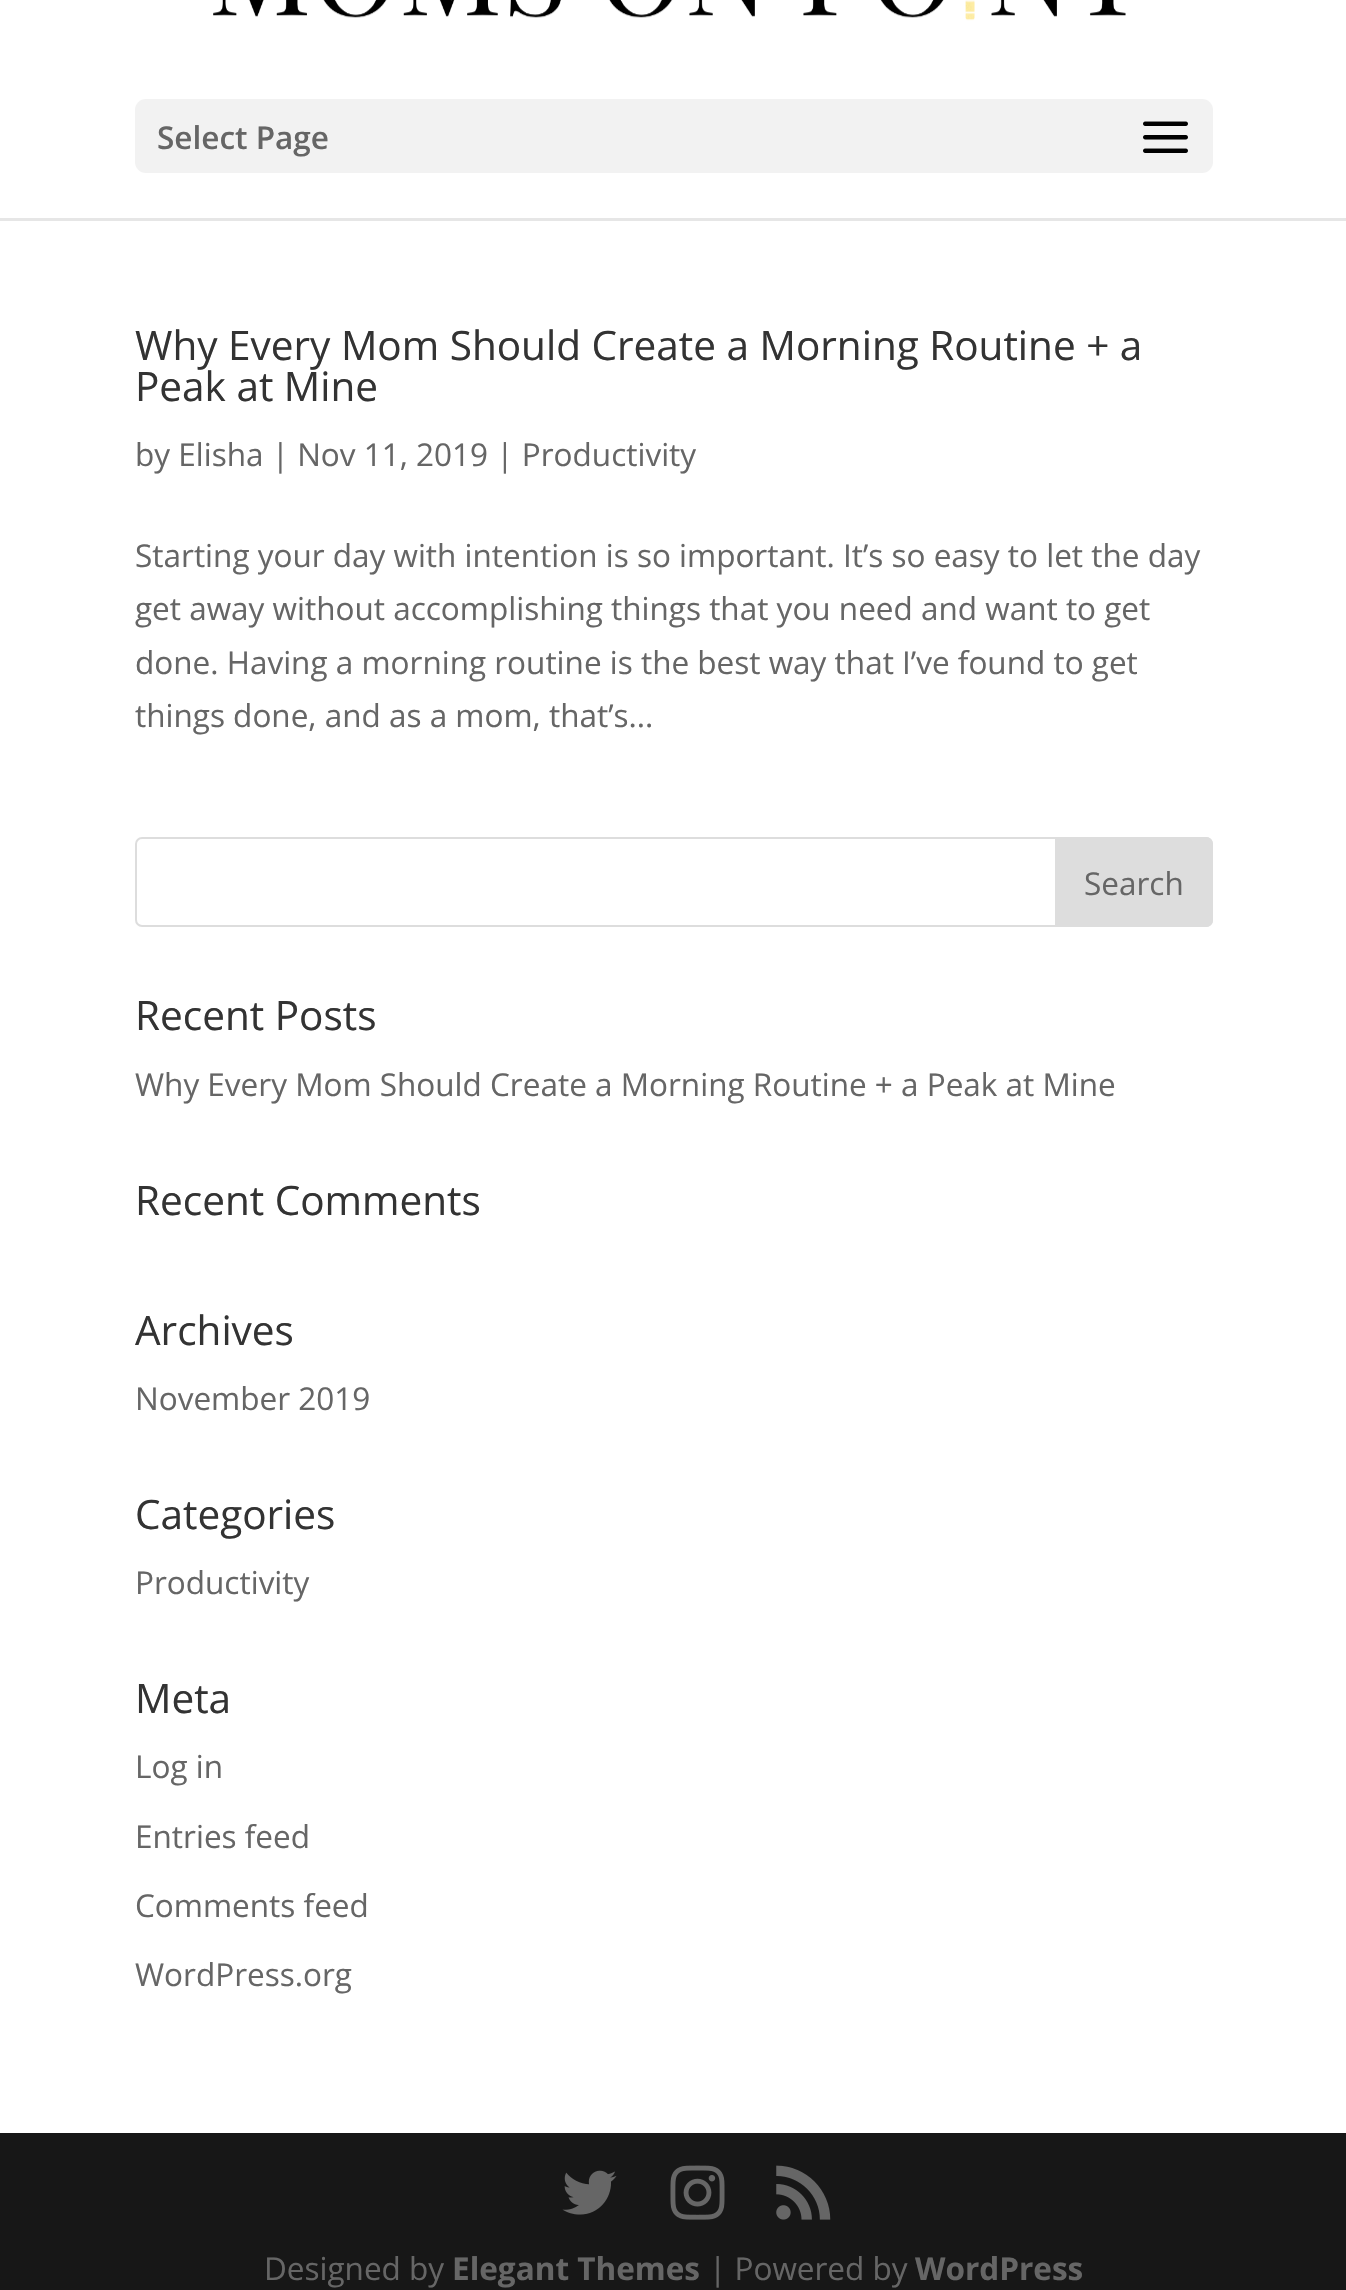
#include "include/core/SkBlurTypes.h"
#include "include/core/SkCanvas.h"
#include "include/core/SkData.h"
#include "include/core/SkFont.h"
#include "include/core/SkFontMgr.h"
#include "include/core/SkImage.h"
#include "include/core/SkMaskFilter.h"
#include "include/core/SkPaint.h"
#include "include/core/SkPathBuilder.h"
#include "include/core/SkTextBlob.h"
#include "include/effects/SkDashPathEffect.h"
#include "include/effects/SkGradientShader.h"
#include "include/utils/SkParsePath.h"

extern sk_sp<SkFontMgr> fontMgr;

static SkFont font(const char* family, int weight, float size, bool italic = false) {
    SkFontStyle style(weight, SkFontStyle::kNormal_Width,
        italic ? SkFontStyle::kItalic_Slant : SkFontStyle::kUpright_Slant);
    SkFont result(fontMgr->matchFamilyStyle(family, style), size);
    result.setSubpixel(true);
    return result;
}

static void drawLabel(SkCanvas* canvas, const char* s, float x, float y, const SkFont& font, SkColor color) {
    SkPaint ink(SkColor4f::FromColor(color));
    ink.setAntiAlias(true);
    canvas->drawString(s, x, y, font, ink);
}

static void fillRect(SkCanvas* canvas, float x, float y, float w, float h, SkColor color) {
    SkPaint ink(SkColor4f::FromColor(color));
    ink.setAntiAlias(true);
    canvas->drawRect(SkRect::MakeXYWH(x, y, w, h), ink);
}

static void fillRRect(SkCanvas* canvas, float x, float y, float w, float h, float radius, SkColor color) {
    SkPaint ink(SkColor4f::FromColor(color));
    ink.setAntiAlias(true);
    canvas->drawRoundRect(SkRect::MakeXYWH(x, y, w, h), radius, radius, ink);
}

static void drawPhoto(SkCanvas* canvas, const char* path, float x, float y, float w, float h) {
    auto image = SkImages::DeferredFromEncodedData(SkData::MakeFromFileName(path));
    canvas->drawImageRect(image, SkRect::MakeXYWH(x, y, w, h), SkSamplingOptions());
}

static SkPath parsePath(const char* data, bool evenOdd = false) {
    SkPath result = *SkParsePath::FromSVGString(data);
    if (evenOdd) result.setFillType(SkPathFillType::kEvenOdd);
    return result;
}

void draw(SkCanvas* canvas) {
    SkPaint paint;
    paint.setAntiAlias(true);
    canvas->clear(0xFFFFFFFF);
    paint.setColor(0xFFE6E6E6);
    canvas->drawPath(parsePath("M0 218V221H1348V-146V218Z"), paint);
    drawPhoto(canvas, "assets/img1.png", 213, 0, 913, 21);
    fillRRect(canvas, 135, 99, 1078, 74, 11, 0xFFF2F2F2);
    SkFont font1 = font("Open Sans", 600, 31.5f);
    drawLabel(canvas, "Select Page", 157, 149, font1, 0xFF666666);
    drawPhoto(canvas, "assets/img2.png", 1143, 121, 45, 32);
    SkFont font2 = font("Open Sans", 400, 40.5f);
    drawLabel(canvas, "Why Every Mom Should Create a Morning Routine + a", 135, 360, font2, 0xFF333333);
    drawLabel(canvas, "Peak at Mine", 135, 401, font2, 0xFF333333);
    SkFont font3 = font("Open Sans", 400, 31.5f);
    drawLabel(canvas, "by Elisha | Nov 11, 2019 | Productivity", 135, 466, font3, 0xFF666666);
    drawLabel(canvas, "Starting your day with intention is so important. It’s so easy to let the day", 135, 567, font3, 0xFF666666);
    drawLabel(canvas, "get away without accomplishing things that you need and want to get", 135, 620, font3, 0xFF666666);
    drawLabel(canvas, "done. Having a morning routine is the best way that I’ve found to get", 135, 674, font3, 0xFF666666);
    drawLabel(canvas, "things done, and as a mom, that’s...", 135, 727, font3, 0xFF666666);
    paint.setStroke(true);
    paint.setStrokeWidth(2);
    paint.setColor(0xFFDDDDDD);
    canvas->drawRoundRect(SkRect::MakeXYWH(136, 838, 1076, 88), 6, 6, paint);
    paint.setStroke(false);
    canvas->drawPath(parsePath("M1056 838H1206C1209.5 838 1212 840.5 1212 844V920C1212 923.5 1209.5 926 1206 926H1056Z"), paint);
    paint.setStroke(true);
    canvas->drawPath(parsePath("M1056 838H1206C1209.5 838 1212 840.5 1212 844V920C1212 923.5 1209.5 926 1206 926H1056Z"), paint);
    drawLabel(canvas, "Search", 1084, 895, font3, 0xFF666666);
    drawLabel(canvas, "Recent Posts", 135, 1030, font2, 0xFF333333);
    drawLabel(canvas, "Why Every Mom Should Create a Morning Routine + a Peak at Mine", 135, 1096, font3, 0xFF666666);
    drawLabel(canvas, "Recent Comments", 135, 1215, font2, 0xFF333333);
    drawLabel(canvas, "Archives", 135, 1345, font2, 0xFF333333);
    drawLabel(canvas, "November 2019", 135, 1410, font3, 0xFF666666);
    drawLabel(canvas, "Categories", 135, 1529, font2, 0xFF333333);
    drawLabel(canvas, "Productivity", 135, 1594, font3, 0xFF666666);
    drawLabel(canvas, "Meta", 135, 1713, font2, 0xFF333333);
    drawLabel(canvas, "Log in", 135, 1778, font3, 0xFF666666);
    drawLabel(canvas, "Entries feed", 135, 1848, font3, 0xFF666666);
    drawLabel(canvas, "Comments feed", 135, 1917, font3, 0xFF666666);
    drawLabel(canvas, "WordPress.org", 135, 1986, font3, 0xFF666666);
    fillRect(canvas, 0, 2133, 1346, 157, 0xFF171717);
    drawPhoto(canvas, "assets/img3.png", 562, 2170, 55, 45);
    drawPhoto(canvas, "assets/img4.png", 670, 2165, 55, 55);
    drawPhoto(canvas, "assets/img5.png", 776, 2165, 55, 55);
    drawLabel(canvas, "Designed by", 264, 2280, font3, 0xFF666666);
    SkFont font4 = font("Open Sans", 700, 31.5f);
    drawLabel(canvas, "Elegant Themes", 452, 2280, font4, 0xFF666666);
    drawLabel(canvas, "| Powered by", 709, 2280, font3, 0xFF666666);
    drawLabel(canvas, "WordPress", 915, 2280, font4, 0xFF666666);
}
